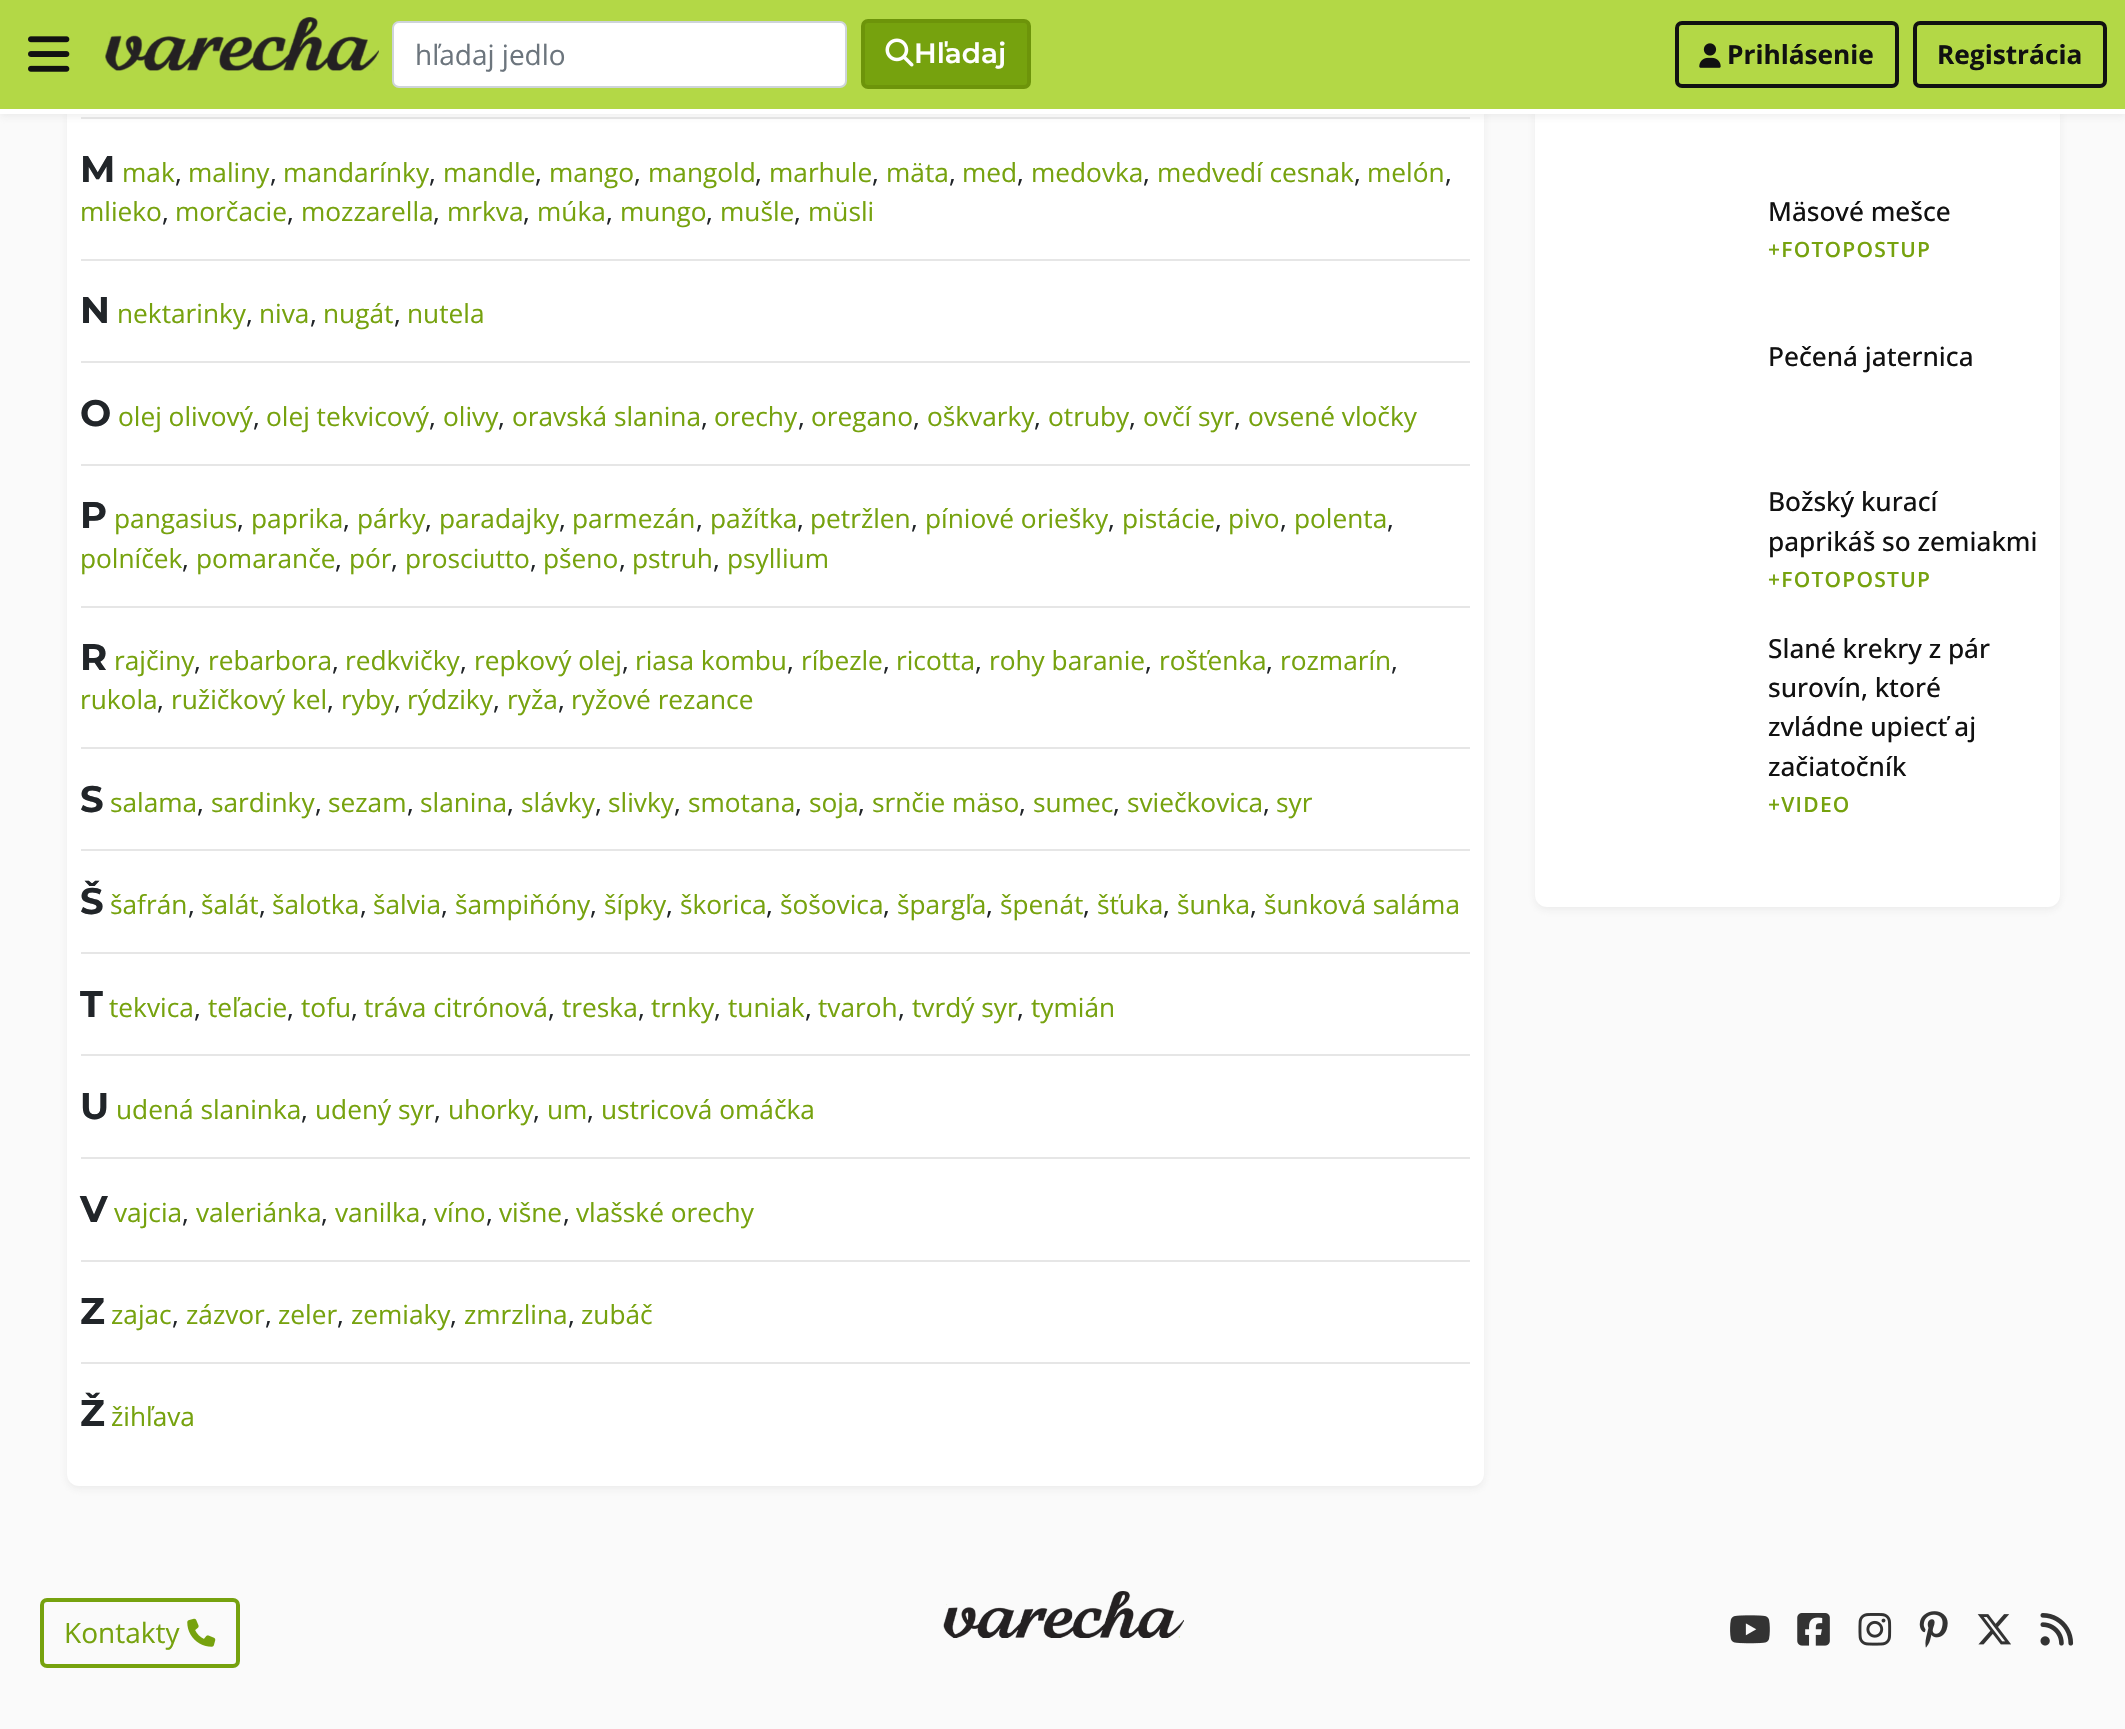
#include "include/core/SkBlurTypes.h"
#include "include/core/SkCanvas.h"
#include "include/core/SkData.h"
#include "include/core/SkFont.h"
#include "include/core/SkFontMgr.h"
#include "include/core/SkImage.h"
#include "include/core/SkMaskFilter.h"
#include "include/core/SkPaint.h"
#include "include/core/SkPathBuilder.h"
#include "include/core/SkTextBlob.h"
#include "include/effects/SkDashPathEffect.h"
#include "include/effects/SkGradientShader.h"
#include "include/utils/SkParsePath.h"

extern sk_sp<SkFontMgr> fontMgr;

static SkFont font(const char* family, int weight, float size, bool italic = false) {
    SkFontStyle style(weight, SkFontStyle::kNormal_Width,
        italic ? SkFontStyle::kItalic_Slant : SkFontStyle::kUpright_Slant);
    SkFont result(fontMgr->matchFamilyStyle(family, style), size);
    result.setSubpixel(true);
    return result;
}

static void drawLabel(SkCanvas* canvas, const char* s, float x, float y, const SkFont& font, SkColor color) {
    SkPaint ink(SkColor4f::FromColor(color));
    ink.setAntiAlias(true);
    canvas->drawString(s, x, y, font, ink);
}

static void drawTracked(SkCanvas* canvas, const char* s, float x, float y, const SkFont& font, const SkPaint& ink, float letter, float word) {
    std::vector<SkGlyphID> glyphs(font.countText(s, strlen(s), SkTextEncoding::kUTF8));
    std::vector<float> xs(glyphs.size());
    font.textToGlyphs(s, strlen(s), SkTextEncoding::kUTF8, glyphs);
    font.getXPos(glyphs, xs, x);
    float extra = 0;
    for (size_t i = 0; i < glyphs.size(); i++) {
        xs[i] += extra;
        extra += letter + word * (glyphs[i] == font.unicharToGlyph(' '));
    }
    canvas->drawTextBlob(SkTextBlob::MakeFromPosHGlyphs(glyphs, xs, y, font), 0, 0, ink);
}

static void fillRect(SkCanvas* canvas, float x, float y, float w, float h, SkColor color) {
    SkPaint ink(SkColor4f::FromColor(color));
    ink.setAntiAlias(true);
    canvas->drawRect(SkRect::MakeXYWH(x, y, w, h), ink);
}

static void fillRRect(SkCanvas* canvas, float x, float y, float w, float h, float radius, SkColor color) {
    SkPaint ink(SkColor4f::FromColor(color));
    ink.setAntiAlias(true);
    canvas->drawRoundRect(SkRect::MakeXYWH(x, y, w, h), radius, radius, ink);
}

static void drawPhoto(SkCanvas* canvas, const char* path, float x, float y, float w, float h) {
    auto image = SkImages::DeferredFromEncodedData(SkData::MakeFromFileName(path));
    canvas->drawImageRect(image, SkRect::MakeXYWH(x, y, w, h), SkSamplingOptions());
}

void draw(SkCanvas* canvas) {
    SkPaint paint;
    paint.setAntiAlias(true);
    canvas->clear(0xFFFAFAFA);
    paint.setColor(0x52CCCCCC);
    paint.setMaskFilter(SkMaskFilter::MakeBlur(kNormal_SkBlurStyle, 3.5f));
    canvas->drawRoundRect(SkRect::MakeXYWH(67, -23, 1417, 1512), 12, 12, paint);
    paint.setMaskFilter(nullptr);
    fillRRect(canvas, 67, -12, 1417, 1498, 12, 0xFFFFFFFF);
    fillRect(canvas, 81, 117, 1389, 2, 0xFFE6E6E6);
    paint.setMaskFilter(SkMaskFilter::MakeBlur(kNormal_SkBlurStyle, 3.5f));
    canvas->drawRoundRect(SkRect::MakeXYWH(1535, -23, 525, 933), 12, 12, paint);
    paint.setMaskFilter(nullptr);
    fillRRect(canvas, 1535, -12, 525, 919, 12, 0xFFFFFFFF);
    paint.setMaskFilter(SkMaskFilter::MakeBlur(kNormal_SkBlurStyle, 3.5f));
    canvas->drawRect(SkRect::MakeXYWH(0, 4, 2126, 113), paint);
    paint.setMaskFilter(nullptr);
    fillRect(canvas, 0, 0, 2125, 109, 0xFFB3D846);
    fillRect(canvas, 0, 109, 2125, 5, 0xFFFFFFFF);
    drawPhoto(canvas, "assets/img1.png", 28, 36, 42, 36);
    drawPhoto(canvas, "assets/img2.png", 105, 17, 274, 54);
    paint.setColor(0xFFFFFFFF);
    canvas->drawRoundRect(SkRect::MakeXYWH(393, 22, 453, 65), 6, 6, paint);
    paint.setStroke(true);
    paint.setStrokeWidth(2);
    paint.setColor(0xFFCED4DA);
    canvas->drawRoundRect(SkRect::MakeXYWH(393, 22, 453, 65), 6, 6, paint);
    SkFont font1 = font("Open Sans", 400, 28);
    drawLabel(canvas, "hľadaj jedlo", 415, 65, font1, 0xFF6C757D);
    paint.setStroke(false);
    paint.setColor(0xFF76A20E);
    canvas->drawRoundRect(SkRect::MakeXYWH(863, 21, 166, 66), 5, 5, paint);
    paint.setStroke(true);
    paint.setStrokeWidth(4);
    paint.setColor(0xFF6D940A);
    canvas->drawRoundRect(SkRect::MakeXYWH(863, 21, 166, 66), 5, 5, paint);
    drawPhoto(canvas, "assets/img3.png", 885, 38, 29, 29);
    SkFont font2 = font("Montserrat", 600, 28);
    drawLabel(canvas, "Hľadaj", 914, 63, font2, 0xFFFFFFFF);
    paint.setColor(0xFF111111);
    canvas->drawRoundRect(SkRect::MakeXYWH(1677, 23, 220, 63), 5, 5, paint);
    drawPhoto(canvas, "assets/img4.png", 1699, 43, 22, 25);
    SkFont font3 = font("Open Sans", 700, 26.25f);
    drawLabel(canvas, "Prihlásenie", 1727, 64, font3, 0xFF111111);
    canvas->drawRoundRect(SkRect::MakeXYWH(1915, 23, 190, 63), 5, 5, paint);
    drawLabel(canvas, "Registrácia", 1937, 64, font3, 0xFF111111);
    SkFont font4 = font("Montserrat", 700, 37);
    drawLabel(canvas, "M", 80, 182, font4, 0xFF212529);
    SkFont font5 = font("Open Sans", 400, 26.25f);
    drawLabel(canvas, "mak", 122, 182, font5, 0xFF76A20E);
    drawLabel(canvas, ",", 175, 182, font5, 0xFF212529);
    drawLabel(canvas, "maliny", 188, 182, font5, 0xFF76A20E);
    drawLabel(canvas, ",", 270, 182, font5, 0xFF212529);
    drawLabel(canvas, "mandarínky", 283, 182, font5, 0xFF76A20E);
    drawLabel(canvas, ",", 429, 182, font5, 0xFF212529);
    drawLabel(canvas, "mandle", 443, 182, font5, 0xFF76A20E);
    drawLabel(canvas, ",", 535, 182, font5, 0xFF212529);
    drawLabel(canvas, "mango", 549, 182, font5, 0xFF76A20E);
    drawLabel(canvas, ",", 634, 182, font5, 0xFF212529);
    drawLabel(canvas, "mangold", 648, 182, font5, 0xFF76A20E);
    drawLabel(canvas, ",", 755, 182, font5, 0xFF212529);
    drawLabel(canvas, "marhule", 769, 182, font5, 0xFF76A20E);
    drawLabel(canvas, ",", 872, 182, font5, 0xFF212529);
    drawLabel(canvas, "mäta", 886, 182, font5, 0xFF76A20E);
    drawLabel(canvas, ",", 949, 182, font5, 0xFF212529);
    drawLabel(canvas, "med", 962, 182, font5, 0xFF76A20E);
    drawLabel(canvas, ",", 1017, 182, font5, 0xFF212529);
    drawLabel(canvas, "medovka", 1031, 182, font5, 0xFF76A20E);
    drawLabel(canvas, ",", 1143, 182, font5, 0xFF212529);
    drawLabel(canvas, "medvedí cesnak", 1157, 182, font5, 0xFF76A20E);
    drawLabel(canvas, ",", 1354, 182, font5, 0xFF212529);
    drawLabel(canvas, "melón", 1367, 182, font5, 0xFF76A20E);
    drawLabel(canvas, ",", 1445, 182, font5, 0xFF212529);
    drawLabel(canvas, "mlieko", 80, 221, font5, 0xFF76A20E);
    drawLabel(canvas, ",", 162, 221, font5, 0xFF212529);
    drawLabel(canvas, "morčacie", 175, 221, font5, 0xFF76A20E);
    drawLabel(canvas, ",", 287, 221, font5, 0xFF212529);
    drawLabel(canvas, "mozzarella", 301, 221, font5, 0xFF76A20E);
    drawLabel(canvas, ",", 433, 221, font5, 0xFF212529);
    drawLabel(canvas, "mrkva", 447, 221, font5, 0xFF76A20E);
    drawLabel(canvas, ",", 523, 221, font5, 0xFF212529);
    drawLabel(canvas, "múka", 537, 221, font5, 0xFF76A20E);
    drawLabel(canvas, ",", 606, 221, font5, 0xFF212529);
    drawLabel(canvas, "mungo", 620, 221, font5, 0xFF76A20E);
    drawLabel(canvas, ",", 706, 221, font5, 0xFF212529);
    drawLabel(canvas, "mušle", 720, 221, font5, 0xFF76A20E);
    drawLabel(canvas, ",", 794, 221, font5, 0xFF212529);
    drawLabel(canvas, "müsli", 808, 221, font5, 0xFF76A20E);
    fillRect(canvas, 81, 259, 1389, 2, 0xFFE6E6E6);
    drawLabel(canvas, "N", 80, 323, font4, 0xFF212529);
    drawLabel(canvas, "nektarinky", 117, 323, font5, 0xFF76A20E);
    drawLabel(canvas, ",", 246, 323, font5, 0xFF212529);
    drawLabel(canvas, "niva", 259, 323, font5, 0xFF76A20E);
    drawLabel(canvas, ",", 310, 323, font5, 0xFF212529);
    drawLabel(canvas, "nugát", 323, 323, font5, 0xFF76A20E);
    drawLabel(canvas, ",", 394, 323, font5, 0xFF212529);
    drawLabel(canvas, "nutela", 407, 323, font5, 0xFF76A20E);
    fillRect(canvas, 81, 361, 1389, 2, 0xFFE6E6E6);
    drawLabel(canvas, "O", 80, 426, font4, 0xFF212529);
    drawLabel(canvas, "olej olivový", 118, 426, font5, 0xFF76A20E);
    drawLabel(canvas, ",", 253, 426, font5, 0xFF212529);
    drawLabel(canvas, "olej tekvicový", 266, 426, font5, 0xFF76A20E);
    drawLabel(canvas, ",", 429, 426, font5, 0xFF212529);
    drawLabel(canvas, "olivy", 443, 426, font5, 0xFF76A20E);
    drawLabel(canvas, ",", 498, 426, font5, 0xFF212529);
    drawLabel(canvas, "oravská slanina", 512, 426, font5, 0xFF76A20E);
    drawLabel(canvas, ",", 701, 426, font5, 0xFF212529);
    drawLabel(canvas, "orechy", 714, 426, font5, 0xFF76A20E);
    drawLabel(canvas, ",", 798, 426, font5, 0xFF212529);
    drawLabel(canvas, "oregano", 811, 426, font5, 0xFF76A20E);
    drawLabel(canvas, ",", 913, 426, font5, 0xFF212529);
    drawLabel(canvas, "oškvarky", 927, 426, font5, 0xFF76A20E);
    drawLabel(canvas, ",", 1034, 426, font5, 0xFF212529);
    drawLabel(canvas, "otruby", 1048, 426, font5, 0xFF76A20E);
    drawLabel(canvas, ",", 1129, 426, font5, 0xFF212529);
    drawLabel(canvas, "ovčí syr", 1143, 426, font5, 0xFF76A20E);
    drawLabel(canvas, ",", 1234, 426, font5, 0xFF212529);
    drawLabel(canvas, "ovsené vločky", 1248, 426, font5, 0xFF76A20E);
    fillRect(canvas, 81, 464, 1389, 2, 0xFFE6E6E6);
    drawLabel(canvas, "P", 80, 528, font4, 0xFF212529);
    drawLabel(canvas, "pangasius", 114, 528, font5, 0xFF76A20E);
    drawLabel(canvas, ",", 237, 528, font5, 0xFF212529);
    drawLabel(canvas, "paprika", 251, 528, font5, 0xFF76A20E);
    drawLabel(canvas, ",", 343, 528, font5, 0xFF212529);
    drawLabel(canvas, "párky", 357, 528, font5, 0xFF76A20E);
    drawLabel(canvas, ",", 425, 528, font5, 0xFF212529);
    drawLabel(canvas, "paradajky", 439, 528, font5, 0xFF76A20E);
    drawLabel(canvas, ",", 559, 528, font5, 0xFF212529);
    drawLabel(canvas, "parmezán", 572, 528, font5, 0xFF76A20E);
    drawLabel(canvas, ",", 696, 528, font5, 0xFF212529);
    drawLabel(canvas, "pažítka", 710, 528, font5, 0xFF76A20E);
    drawLabel(canvas, ",", 797, 528, font5, 0xFF212529);
    drawLabel(canvas, "petržlen", 810, 528, font5, 0xFF76A20E);
    drawLabel(canvas, ",", 911, 528, font5, 0xFF212529);
    drawLabel(canvas, "píniové oriešky", 925, 528, font5, 0xFF76A20E);
    drawLabel(canvas, ",", 1108, 528, font5, 0xFF212529);
    drawLabel(canvas, "pistácie", 1122, 528, font5, 0xFF76A20E);
    drawLabel(canvas, ",", 1215, 528, font5, 0xFF212529);
    drawLabel(canvas, "pivo", 1228, 528, font5, 0xFF76A20E);
    drawLabel(canvas, ",", 1280, 528, font5, 0xFF212529);
    drawLabel(canvas, "polenta", 1294, 528, font5, 0xFF76A20E);
    drawLabel(canvas, ",", 1387, 528, font5, 0xFF212529);
    drawLabel(canvas, "polníček", 80, 568, font5, 0xFF76A20E);
    drawLabel(canvas, ",", 182, 568, font5, 0xFF212529);
    drawLabel(canvas, "pomaranče", 196, 568, font5, 0xFF76A20E);
    drawLabel(canvas, ",", 335, 568, font5, 0xFF212529);
    drawLabel(canvas, "pór", 349, 568, font5, 0xFF76A20E);
    drawLabel(canvas, ",", 391, 568, font5, 0xFF212529);
    drawLabel(canvas, "prosciutto", 405, 568, font5, 0xFF76A20E);
    drawLabel(canvas, ",", 530, 568, font5, 0xFF212529);
    drawLabel(canvas, "pšeno", 543, 568, font5, 0xFF76A20E);
    drawLabel(canvas, ",", 619, 568, font5, 0xFF212529);
    drawLabel(canvas, "pstruh", 632, 568, font5, 0xFF76A20E);
    drawLabel(canvas, ",", 713, 568, font5, 0xFF212529);
    drawLabel(canvas, "psyllium", 727, 568, font5, 0xFF76A20E);
    fillRect(canvas, 81, 606, 1389, 2, 0xFFE6E6E6);
    drawLabel(canvas, "R", 80, 670, font4, 0xFF212529);
    drawLabel(canvas, "rajčiny", 114, 670, font5, 0xFF76A20E);
    drawLabel(canvas, ",", 194, 670, font5, 0xFF212529);
    drawLabel(canvas, "rebarbora", 208, 670, font5, 0xFF76A20E);
    drawLabel(canvas, ",", 332, 670, font5, 0xFF212529);
    drawLabel(canvas, "redkvičky", 345, 670, font5, 0xFF76A20E);
    drawLabel(canvas, ",", 460, 670, font5, 0xFF212529);
    drawLabel(canvas, "repkový olej", 474, 670, font5, 0xFF76A20E);
    drawLabel(canvas, ",", 622, 670, font5, 0xFF212529);
    drawLabel(canvas, "riasa kombu", 635, 670, font5, 0xFF76A20E);
    drawLabel(canvas, ",", 787, 670, font5, 0xFF212529);
    drawLabel(canvas, "ríbezle", 801, 670, font5, 0xFF76A20E);
    drawLabel(canvas, ",", 883, 670, font5, 0xFF212529);
    drawLabel(canvas, "ricotta", 896, 670, font5, 0xFF76A20E);
    drawLabel(canvas, ",", 975, 670, font5, 0xFF212529);
    drawLabel(canvas, "rohy baranie", 989, 670, font5, 0xFF76A20E);
    drawLabel(canvas, ",", 1145, 670, font5, 0xFF212529);
    drawLabel(canvas, "rošťenka", 1159, 670, font5, 0xFF76A20E);
    drawLabel(canvas, ",", 1266, 670, font5, 0xFF212529);
    drawLabel(canvas, "rozmarín", 1280, 670, font5, 0xFF76A20E);
    drawLabel(canvas, ",", 1391, 670, font5, 0xFF212529);
    drawLabel(canvas, "rukola", 80, 709, font5, 0xFF76A20E);
    drawLabel(canvas, ",", 157, 709, font5, 0xFF212529);
    drawLabel(canvas, "ružičkový kel", 171, 709, font5, 0xFF76A20E);
    drawLabel(canvas, ",", 327, 709, font5, 0xFF212529);
    drawLabel(canvas, "ryby", 341, 709, font5, 0xFF76A20E);
    drawLabel(canvas, ",", 394, 709, font5, 0xFF212529);
    drawLabel(canvas, "rýdziky", 407, 709, font5, 0xFF76A20E);
    drawLabel(canvas, ",", 493, 709, font5, 0xFF212529);
    drawLabel(canvas, "ryža", 507, 709, font5, 0xFF76A20E);
    drawLabel(canvas, ",", 558, 709, font5, 0xFF212529);
    drawLabel(canvas, "ryžové rezance", 571, 709, font5, 0xFF76A20E);
    fillRect(canvas, 81, 747, 1389, 2, 0xFFE6E6E6);
    drawLabel(canvas, "S", 80, 812, font4, 0xFF212529);
    drawLabel(canvas, "salama", 110, 812, font5, 0xFF76A20E);
    drawLabel(canvas, ",", 197, 812, font5, 0xFF212529);
    drawLabel(canvas, "sardinky", 211, 812, font5, 0xFF76A20E);
    drawLabel(canvas, ",", 315, 812, font5, 0xFF212529);
    drawLabel(canvas, "sezam", 328, 812, font5, 0xFF76A20E);
    drawLabel(canvas, ",", 407, 812, font5, 0xFF212529);
    drawLabel(canvas, "slanina", 420, 812, font5, 0xFF76A20E);
    drawLabel(canvas, ",", 507, 812, font5, 0xFF212529);
    drawLabel(canvas, "slávky", 521, 812, font5, 0xFF76A20E);
    drawLabel(canvas, ",", 595, 812, font5, 0xFF212529);
    drawLabel(canvas, "slivky", 608, 812, font5, 0xFF76A20E);
    drawLabel(canvas, ",", 674, 812, font5, 0xFF212529);
    drawLabel(canvas, "smotana", 688, 812, font5, 0xFF76A20E);
    drawLabel(canvas, ",", 795, 812, font5, 0xFF212529);
    drawLabel(canvas, "soja", 809, 812, font5, 0xFF76A20E);
    drawLabel(canvas, ",", 858, 812, font5, 0xFF212529);
    drawLabel(canvas, "srnčie mäso", 872, 812, font5, 0xFF76A20E);
    drawLabel(canvas, ",", 1019, 812, font5, 0xFF212529);
    drawLabel(canvas, "sumec", 1033, 812, font5, 0xFF76A20E);
    drawLabel(canvas, ",", 1113, 812, font5, 0xFF212529);
    drawLabel(canvas, "sviečkovica", 1127, 812, font5, 0xFF76A20E);
    drawLabel(canvas, ",", 1263, 812, font5, 0xFF212529);
    drawLabel(canvas, "syr", 1276, 812, font5, 0xFF76A20E);
    fillRect(canvas, 81, 849, 1389, 2, 0xFFE6E6E6);
    drawLabel(canvas, "Š", 80, 914, font4, 0xFF212529);
    drawLabel(canvas, "šafrán", 110, 914, font5, 0xFF76A20E);
    drawLabel(canvas, ",", 188, 914, font5, 0xFF212529);
    drawLabel(canvas, "šalát", 201, 914, font5, 0xFF76A20E);
    drawLabel(canvas, ",", 259, 914, font5, 0xFF212529);
    drawLabel(canvas, "šalotka", 272, 914, font5, 0xFF76A20E);
    drawLabel(canvas, ",", 360, 914, font5, 0xFF212529);
    drawLabel(canvas, "šalvia", 373, 914, font5, 0xFF76A20E);
    drawLabel(canvas, ",", 441, 914, font5, 0xFF212529);
    drawLabel(canvas, "šampiňóny", 455, 914, font5, 0xFF76A20E);
    drawLabel(canvas, ",", 590, 914, font5, 0xFF212529);
    drawLabel(canvas, "šípky", 604, 914, font5, 0xFF76A20E);
    drawLabel(canvas, ",", 666, 914, font5, 0xFF212529);
    drawLabel(canvas, "škorica", 680, 914, font5, 0xFF76A20E);
    drawLabel(canvas, ",", 766, 914, font5, 0xFF212529);
    drawLabel(canvas, "šošovica", 780, 914, font5, 0xFF76A20E);
    drawLabel(canvas, ",", 883, 914, font5, 0xFF212529);
    drawLabel(canvas, "špargľa", 897, 914, font5, 0xFF76A20E);
    drawLabel(canvas, ",", 986, 914, font5, 0xFF212529);
    drawLabel(canvas, "špenát", 1000, 914, font5, 0xFF76A20E);
    drawLabel(canvas, ",", 1083, 914, font5, 0xFF212529);
    drawLabel(canvas, "šťuka", 1097, 914, font5, 0xFF76A20E);
    drawLabel(canvas, ",", 1163, 914, font5, 0xFF212529);
    drawLabel(canvas, "šunka", 1177, 914, font5, 0xFF76A20E);
    drawLabel(canvas, ",", 1250, 914, font5, 0xFF212529);
    drawLabel(canvas, "šunková saláma", 1264, 914, font5, 0xFF76A20E);
    fillRect(canvas, 81, 952, 1389, 2, 0xFFE6E6E6);
    drawLabel(canvas, "T", 80, 1017, font4, 0xFF212529);
    drawLabel(canvas, "tekvica", 109, 1017, font5, 0xFF76A20E);
    drawLabel(canvas, ",", 194, 1017, font5, 0xFF212529);
    drawLabel(canvas, "teľacie", 208, 1017, font5, 0xFF76A20E);
    drawLabel(canvas, ",", 287, 1017, font5, 0xFF212529);
    drawLabel(canvas, "tofu", 301, 1017, font5, 0xFF76A20E);
    drawLabel(canvas, ",", 351, 1017, font5, 0xFF212529);
    drawLabel(canvas, "tráva citrónová", 364, 1017, font5, 0xFF76A20E);
    drawLabel(canvas, ",", 548, 1017, font5, 0xFF212529);
    drawLabel(canvas, "treska", 562, 1017, font5, 0xFF76A20E);
    drawLabel(canvas, ",", 638, 1017, font5, 0xFF212529);
    drawLabel(canvas, "trnky", 651, 1017, font5, 0xFF76A20E);
    drawLabel(canvas, ",", 714, 1017, font5, 0xFF212529);
    drawLabel(canvas, "tuniak", 728, 1017, font5, 0xFF76A20E);
    drawLabel(canvas, ",", 805, 1017, font5, 0xFF212529);
    drawLabel(canvas, "tvaroh", 818, 1017, font5, 0xFF76A20E);
    drawLabel(canvas, ",", 898, 1017, font5, 0xFF212529);
    drawLabel(canvas, "tvrdý syr", 912, 1017, font5, 0xFF76A20E);
    drawLabel(canvas, ",", 1017, 1017, font5, 0xFF212529);
    drawLabel(canvas, "tymián", 1031, 1017, font5, 0xFF76A20E);
    fillRect(canvas, 81, 1054, 1389, 2, 0xFFE6E6E6);
    drawLabel(canvas, "U", 80, 1119, font4, 0xFF212529);
    drawLabel(canvas, "udená slaninka", 116, 1119, font5, 0xFF76A20E);
    drawLabel(canvas, ",", 301, 1119, font5, 0xFF212529);
    drawLabel(canvas, "udený syr", 315, 1119, font5, 0xFF76A20E);
    drawLabel(canvas, ",", 434, 1119, font5, 0xFF212529);
    drawLabel(canvas, "uhorky", 448, 1119, font5, 0xFF76A20E);
    drawLabel(canvas, ",", 533, 1119, font5, 0xFF212529);
    drawLabel(canvas, "um", 547, 1119, font5, 0xFF76A20E);
    drawLabel(canvas, ",", 587, 1119, font5, 0xFF212529);
    drawLabel(canvas, "ustricová omáčka", 601, 1119, font5, 0xFF76A20E);
    fillRect(canvas, 81, 1157, 1389, 2, 0xFFE6E6E6);
    drawLabel(canvas, "V", 80, 1222, font4, 0xFF212529);
    drawLabel(canvas, "vajcia", 114, 1222, font5, 0xFF76A20E);
    drawLabel(canvas, ",", 182, 1222, font5, 0xFF212529);
    drawLabel(canvas, "valeriánka", 196, 1222, font5, 0xFF76A20E);
    drawLabel(canvas, ",", 321, 1222, font5, 0xFF212529);
    drawLabel(canvas, "vanilka", 335, 1222, font5, 0xFF76A20E);
    drawLabel(canvas, ",", 421, 1222, font5, 0xFF212529);
    drawLabel(canvas, "víno", 434, 1222, font5, 0xFF76A20E);
    drawLabel(canvas, ",", 486, 1222, font5, 0xFF212529);
    drawLabel(canvas, "višne", 499, 1222, font5, 0xFF76A20E);
    drawLabel(canvas, ",", 563, 1222, font5, 0xFF212529);
    drawLabel(canvas, "vlašské orechy", 576, 1222, font5, 0xFF76A20E);
    fillRect(canvas, 81, 1260, 1389, 2, 0xFFE6E6E6);
    drawLabel(canvas, "Z", 80, 1324, font4, 0xFF212529);
    drawLabel(canvas, "zajac", 111, 1324, font5, 0xFF76A20E);
    drawLabel(canvas, ",", 172, 1324, font5, 0xFF212529);
    drawLabel(canvas, "zázvor", 186, 1324, font5, 0xFF76A20E);
    drawLabel(canvas, ",", 265, 1324, font5, 0xFF212529);
    drawLabel(canvas, "zeler", 278, 1324, font5, 0xFF76A20E);
    drawLabel(canvas, ",", 337, 1324, font5, 0xFF212529);
    drawLabel(canvas, "zemiaky", 351, 1324, font5, 0xFF76A20E);
    drawLabel(canvas, ",", 450, 1324, font5, 0xFF212529);
    drawLabel(canvas, "zmrzlina", 464, 1324, font5, 0xFF76A20E);
    drawLabel(canvas, ",", 568, 1324, font5, 0xFF212529);
    drawLabel(canvas, "zubáč", 581, 1324, font5, 0xFF76A20E);
    fillRect(canvas, 81, 1362, 1389, 2, 0xFFE6E6E6);
    drawLabel(canvas, "Ž", 80, 1426, font4, 0xFF212529);
    drawLabel(canvas, "žihľava", 111, 1426, font5, 0xFF76A20E);
    SkFont font6 = font("Open Sans", 500, 26.25f);
    drawLabel(canvas, "Mäsové mešce", 1768, 221, font6, 0xFF111111);
    SkFont font7 = font("Open Sans", 600, 21);
    paint.setStroke(false);
    paint.setColor(0xFF76A20E);
    drawTracked(canvas, "+FOTOPOSTUP", 1768, 257, font7, paint, 1.25f, 0);
    drawLabel(canvas, "Pečená jaternica", 1768, 366, font6, 0xFF111111);
    drawLabel(canvas, "Božský kurací", 1768, 511, font6, 0xFF111111);
    drawLabel(canvas, "paprikáš so zemiakmi", 1768, 551, font6, 0xFF111111);
    drawTracked(canvas, "+FOTOPOSTUP", 1768, 587, font7, paint, 1.25f, 0);
    drawLabel(canvas, "Slané krekry z pár", 1768, 658, font6, 0xFF111111);
    drawLabel(canvas, "surovín, ktoré", 1768, 697, font6, 0xFF111111);
    drawLabel(canvas, "zvládne upiecť aj", 1768, 736, font6, 0xFF111111);
    drawLabel(canvas, "začiatočník", 1768, 776, font6, 0xFF111111);
    drawTracked(canvas, "+VIDEO", 1768, 812, font7, paint, 1.25f, 0);
    paint.setStroke(true);
    canvas->drawRoundRect(SkRect::MakeXYWH(42, 1600, 196, 66), 5, 5, paint);
    drawLabel(canvas, "Kontakty", 64, 1643, font1, 0xFF76A20E);
    drawPhoto(canvas, "assets/img5.png", 187, 1618, 29, 29);
    drawPhoto(canvas, "assets/img6.png", 943, 1591, 241, 47);
    drawPhoto(canvas, "assets/img7.png", 1730, 1615, 40, 29);
    drawPhoto(canvas, "assets/img8.png", 1797, 1613, 33, 33);
    drawPhoto(canvas, "assets/img9.png", 1858, 1613, 34, 33);
    drawPhoto(canvas, "assets/img10.png", 1919, 1611, 29, 37);
    drawPhoto(canvas, "assets/img11.png", 1977, 1614, 34, 31);
    drawPhoto(canvas, "assets/img12.png", 2040, 1613, 34, 33);
}
